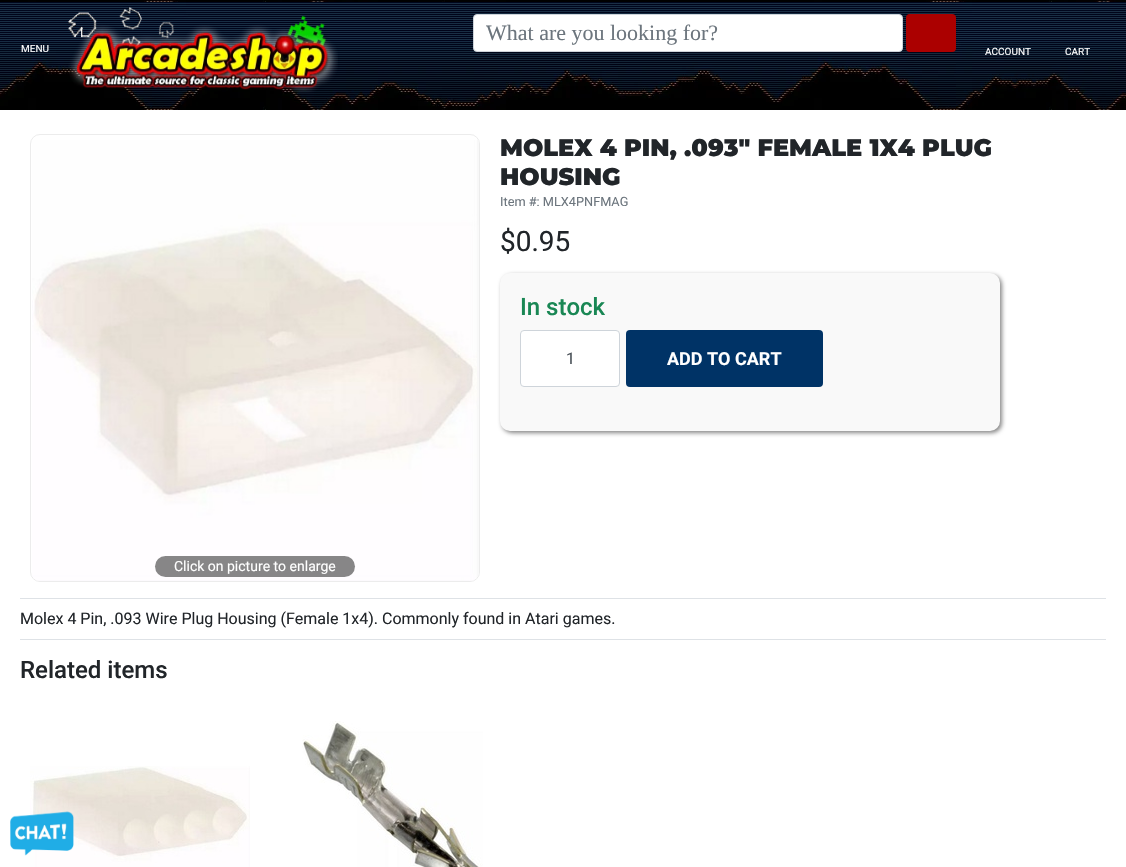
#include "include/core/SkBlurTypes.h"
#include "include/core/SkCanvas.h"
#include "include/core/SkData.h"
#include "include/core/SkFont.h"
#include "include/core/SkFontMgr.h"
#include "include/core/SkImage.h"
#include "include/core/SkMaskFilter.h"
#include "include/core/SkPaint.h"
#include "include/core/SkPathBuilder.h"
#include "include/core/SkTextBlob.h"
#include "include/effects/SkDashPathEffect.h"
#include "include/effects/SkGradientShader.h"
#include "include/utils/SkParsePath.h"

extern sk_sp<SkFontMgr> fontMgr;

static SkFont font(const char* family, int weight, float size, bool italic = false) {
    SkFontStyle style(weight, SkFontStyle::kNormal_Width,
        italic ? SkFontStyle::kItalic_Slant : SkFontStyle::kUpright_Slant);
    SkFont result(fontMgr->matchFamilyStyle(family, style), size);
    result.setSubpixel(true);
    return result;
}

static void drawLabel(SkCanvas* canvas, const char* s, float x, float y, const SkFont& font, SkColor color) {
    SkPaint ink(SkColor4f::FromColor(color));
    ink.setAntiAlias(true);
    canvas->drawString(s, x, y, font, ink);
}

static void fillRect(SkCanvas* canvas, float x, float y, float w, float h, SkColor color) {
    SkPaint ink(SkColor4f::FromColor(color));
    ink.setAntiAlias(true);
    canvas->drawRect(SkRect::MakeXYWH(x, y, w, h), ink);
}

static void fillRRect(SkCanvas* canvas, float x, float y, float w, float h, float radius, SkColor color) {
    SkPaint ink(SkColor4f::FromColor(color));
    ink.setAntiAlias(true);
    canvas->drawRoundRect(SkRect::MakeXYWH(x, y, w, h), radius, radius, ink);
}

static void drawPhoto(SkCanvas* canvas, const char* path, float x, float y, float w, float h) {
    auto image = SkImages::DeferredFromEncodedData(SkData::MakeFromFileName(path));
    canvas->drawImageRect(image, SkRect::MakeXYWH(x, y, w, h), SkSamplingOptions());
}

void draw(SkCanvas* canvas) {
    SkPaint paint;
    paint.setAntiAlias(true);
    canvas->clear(0xFFFFFFFF);
    drawPhoto(canvas, "assets/img1.png", 0, 0, 1126, 110);
    drawPhoto(canvas, "assets/img2.png", 68, 7, 270, 86);
    paint.setColor(0xFFFFFFFF);
    canvas->drawRoundRect(SkRect::MakeXYWH(473.5f, 14.5f, 429, 37), 3.5f, 3.5f, paint);
    paint.setStroke(true);
    paint.setStrokeWidth(1);
    paint.setColor(0xFFCED4DA);
    canvas->drawRoundRect(SkRect::MakeXYWH(473.5f, 14.5f, 429, 37), 3.5f, 3.5f, paint);
    SkFont font1 = font("Liberation Serif", 400, 22);
    drawLabel(canvas, "What are you looking for?", 486, 40, font1, 0xFF6C757D);
    fillRRect(canvas, 906, 14, 50, 38, 4, 0xFFAB0000);
    SkFont font2 = font("Roboto", 400, 10);
    drawLabel(canvas, "MENU", 21, 52, font2, 0xFFFFFFFF);
    drawLabel(canvas, "ACCOUNT", 985, 55, font2, 0xFFFFFFFF);
    drawLabel(canvas, "CART", 1065, 55, font2, 0xFFFFFFFF);
    SkFont font3 = font("Montserrat", 100, 24);
    drawLabel(canvas, "MOLEX 4 PIN, .093\" FEMALE 1X4 PLUG", 500, 156, font3, 0xFF212529);
    drawLabel(canvas, "HOUSING", 500, 185, font3, 0xFF212529);
    SkFont font4 = font("Roboto", 400, 12.75f);
    drawLabel(canvas, "Item #: MLX4PNFMAG", 500, 206, font4, 0xFF6C757D);
    SkFont font5 = font("Roboto", 400, 28);
    drawLabel(canvas, "$0.95", 500, 251, font5, 0xFF212529);
    paint.setStroke(false);
    paint.setColor(0xFF868686);
    paint.setMaskFilter(SkMaskFilter::MakeBlur(kNormal_SkBlurStyle, 2));
    canvas->drawRoundRect(SkRect::MakeXYWH(502, 275, 500, 158), 10, 10, paint);
    paint.setMaskFilter(nullptr);
    fillRRect(canvas, 500, 273, 500, 158, 10, 0xFFF9F9F9);
    SkFont font6 = font("Roboto", 500, 24);
    drawLabel(canvas, "In stock", 520, 315, font6, 0xFF198754);
    paint.setColor(0xFFFFFFFF);
    canvas->drawRoundRect(SkRect::MakeXYWH(520.5f, 330.5f, 99, 56), 3.5f, 3.5f, paint);
    paint.setStroke(true);
    paint.setColor(0xFFCED4DA);
    canvas->drawRoundRect(SkRect::MakeXYWH(520.5f, 330.5f, 99, 56), 3.5f, 3.5f, paint);
    SkFont font7 = font("Roboto", 400, 16);
    drawLabel(canvas, "1", 566, 364, font7, 0xFF495057);
    fillRRect(canvas, 626, 330, 197, 57, 4, 0xFF003366);
    SkFont font8 = font("Roboto", 700, 18);
    drawLabel(canvas, "ADD TO CART", 667, 365, font8, 0xFFFFFFFF);
    paint.setColor(0xFFECECEC);
    canvas->drawRoundRect(SkRect::MakeXYWH(30.5f, 134.5f, 449, 447), 9.5f, 9.5f, paint);
    drawPhoto(canvas, "assets/img3.png", 32, 140, 447, 441);
    fillRRect(canvas, 155, 556, 200, 21, 10.5f, 0xFF878687);
    SkFont font9 = font("Roboto", 400, 14);
    drawLabel(canvas, "Click on picture to enlarge", 174, 571, font9, 0xFFFFFFFF);
    fillRect(canvas, 20, 598, 1086, 1, 0xFFDEE2E6);
    fillRect(canvas, 20, 639, 1086, 1, 0xFFDEE2E6);
    drawLabel(canvas, "Molex 4 Pin, .093 Wire Plug Housing (Female 1x4). Commonly found in Atari games.", 20, 624, font7, 0xFF212529);
    drawLabel(canvas, "Related items", 20, 678, font6, 0xFF212529);
    drawPhoto(canvas, "assets/img4.png", 30, 766, 220, 101);
    drawPhoto(canvas, "assets/img5.png", 302, 721, 181, 146);
    drawPhoto(canvas, "assets/img6.png", 10, 811, 64, 45);
}
